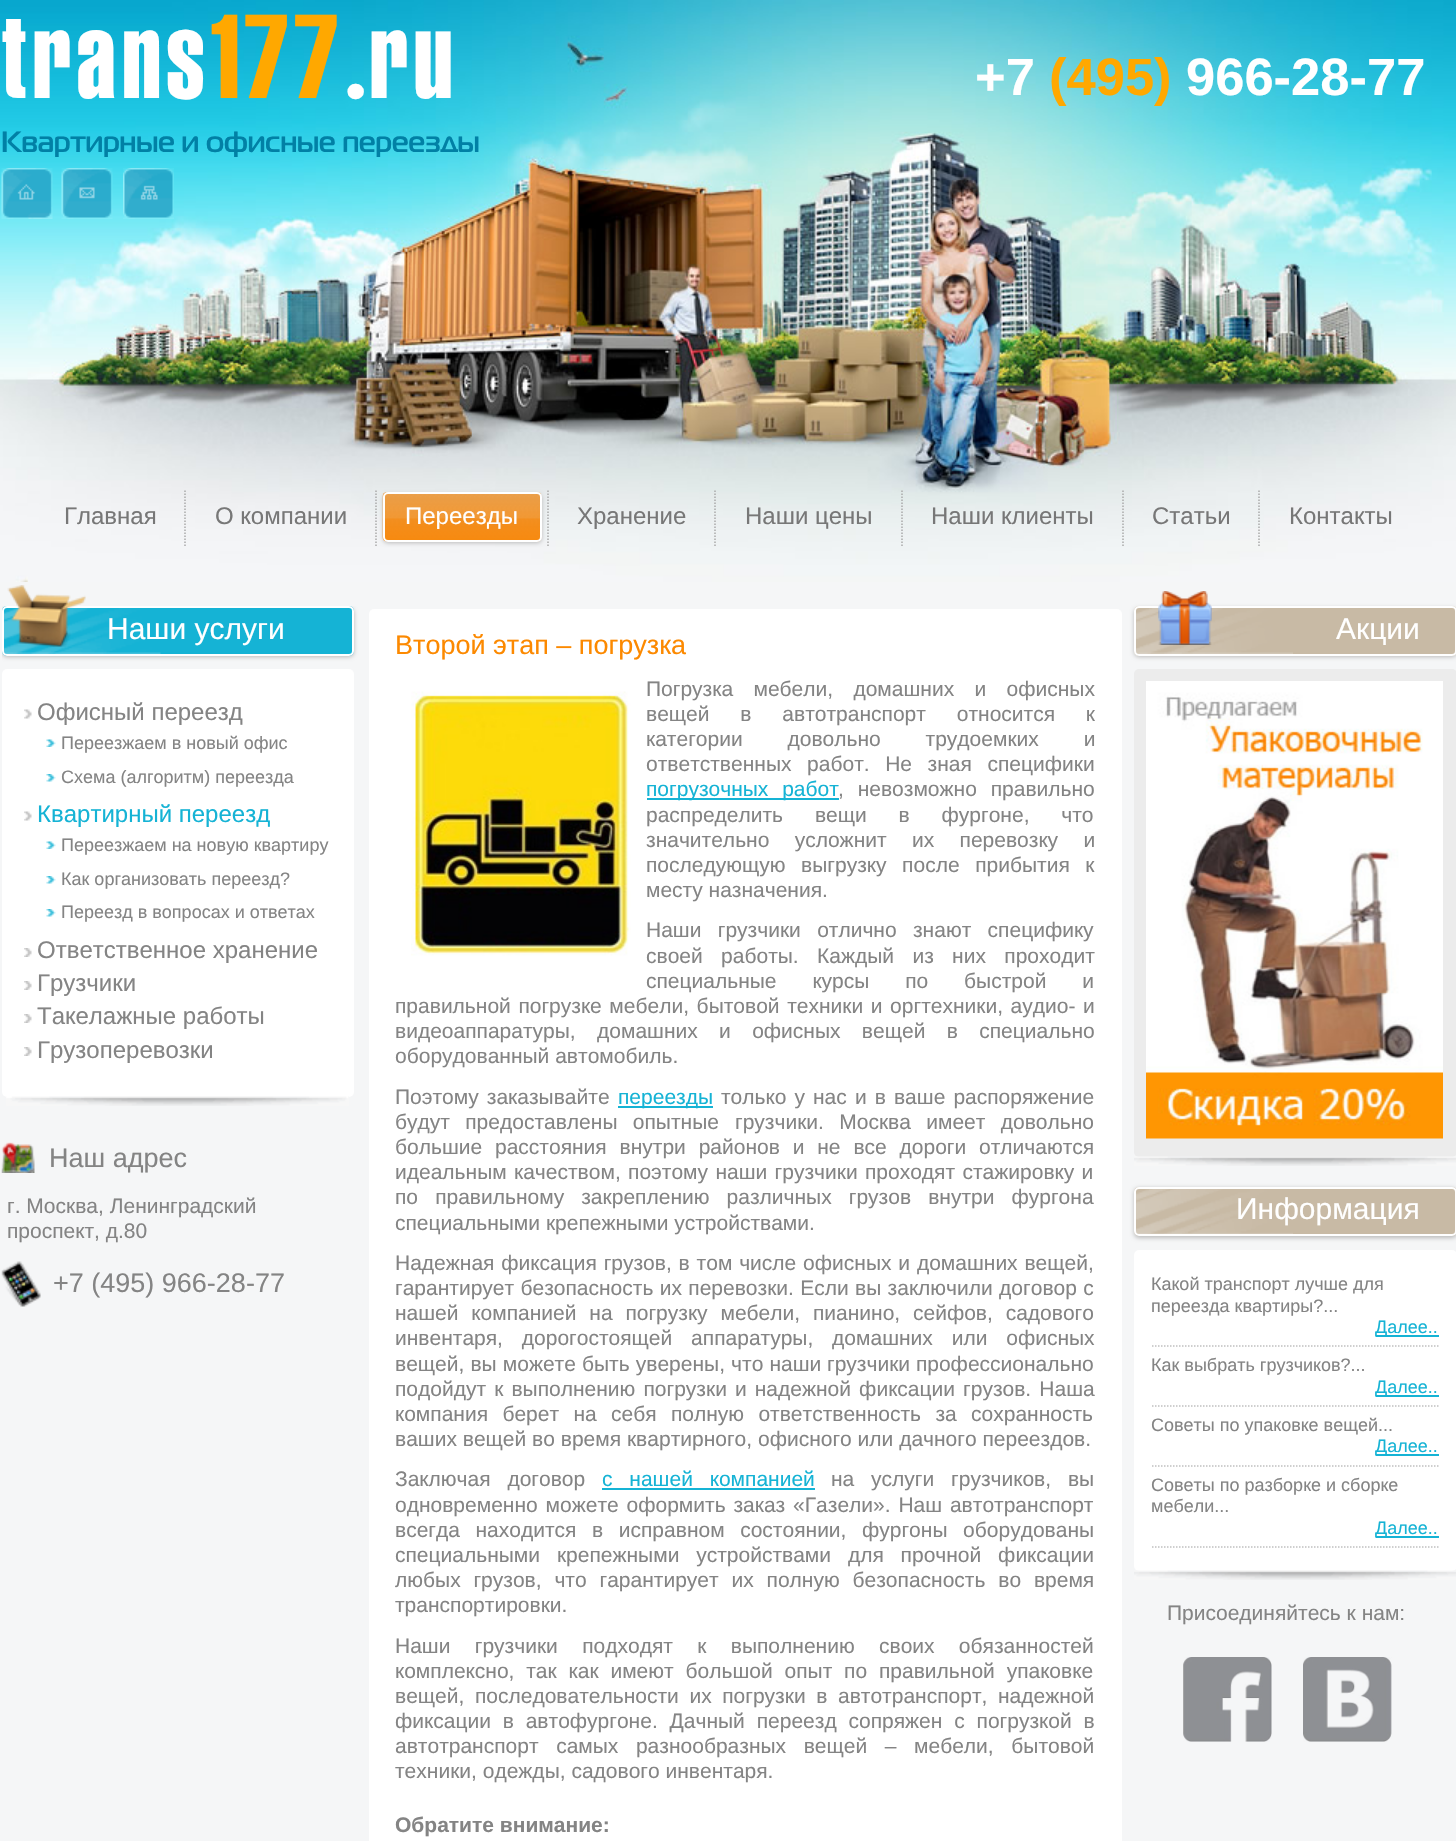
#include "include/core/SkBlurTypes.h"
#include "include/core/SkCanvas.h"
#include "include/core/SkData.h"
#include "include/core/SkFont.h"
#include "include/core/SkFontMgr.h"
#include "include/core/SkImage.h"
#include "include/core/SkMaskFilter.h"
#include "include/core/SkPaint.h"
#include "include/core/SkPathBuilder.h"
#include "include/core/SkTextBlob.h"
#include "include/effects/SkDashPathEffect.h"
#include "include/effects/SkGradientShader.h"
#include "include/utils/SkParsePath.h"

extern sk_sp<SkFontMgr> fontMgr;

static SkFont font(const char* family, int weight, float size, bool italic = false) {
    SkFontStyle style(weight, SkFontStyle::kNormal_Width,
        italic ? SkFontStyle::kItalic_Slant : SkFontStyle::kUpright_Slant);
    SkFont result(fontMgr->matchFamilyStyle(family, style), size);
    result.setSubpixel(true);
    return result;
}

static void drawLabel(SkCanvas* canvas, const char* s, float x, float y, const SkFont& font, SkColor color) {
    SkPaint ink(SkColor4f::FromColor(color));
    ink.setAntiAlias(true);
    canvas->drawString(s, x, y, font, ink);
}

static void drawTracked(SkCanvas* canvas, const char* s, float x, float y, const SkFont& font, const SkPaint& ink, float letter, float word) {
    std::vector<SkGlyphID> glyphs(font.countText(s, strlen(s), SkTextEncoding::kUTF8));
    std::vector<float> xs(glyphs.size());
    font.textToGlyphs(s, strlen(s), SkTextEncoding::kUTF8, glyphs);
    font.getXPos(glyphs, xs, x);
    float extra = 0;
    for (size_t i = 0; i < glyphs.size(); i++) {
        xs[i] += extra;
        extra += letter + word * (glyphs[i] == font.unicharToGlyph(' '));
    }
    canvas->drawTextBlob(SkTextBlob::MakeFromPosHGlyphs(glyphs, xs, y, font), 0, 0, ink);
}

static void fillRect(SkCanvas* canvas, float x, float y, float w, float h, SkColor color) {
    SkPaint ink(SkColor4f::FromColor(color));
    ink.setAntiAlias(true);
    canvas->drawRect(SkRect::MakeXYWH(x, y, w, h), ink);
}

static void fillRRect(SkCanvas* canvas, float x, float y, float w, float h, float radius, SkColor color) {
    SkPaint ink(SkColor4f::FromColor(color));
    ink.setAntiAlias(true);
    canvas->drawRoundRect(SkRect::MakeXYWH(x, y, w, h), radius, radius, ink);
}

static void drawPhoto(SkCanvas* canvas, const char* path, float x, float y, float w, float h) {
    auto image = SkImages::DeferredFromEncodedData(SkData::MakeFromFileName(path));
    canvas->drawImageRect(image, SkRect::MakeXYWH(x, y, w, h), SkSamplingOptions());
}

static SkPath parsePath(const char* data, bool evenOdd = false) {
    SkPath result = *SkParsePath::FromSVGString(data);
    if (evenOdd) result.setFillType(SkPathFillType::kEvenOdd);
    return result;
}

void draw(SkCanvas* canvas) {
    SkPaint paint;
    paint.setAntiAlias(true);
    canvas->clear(0xFFF5F6F7);
    drawPhoto(canvas, "assets/img1.png", 0, 0, 1456, 582);
    SkFont font1 = font("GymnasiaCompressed", 400, 116);
    drawLabel(canvas, "trans", 1, 98, font1, 0xFFFFFFFF);
    drawLabel(canvas, "177", 208, 98, font1, 0xFFFFA800);
    drawLabel(canvas, ".ru", 342, 98, font1, 0xFFFFFFFF);
    SkFont font2 = font("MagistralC", 700, 30);
    drawLabel(canvas, "Квартирные и офисные переезды", 1, 152, font2, 0xFF0180A5);
    drawPhoto(canvas, "assets/img2.png", 1, 168, 52, 51);
    drawPhoto(canvas, "assets/img3.png", 61, 168, 52, 51);
    drawPhoto(canvas, "assets/img4.png", 123, 168, 51, 51);
    SkFont font3 = font("Liberation Sans", 700, 52.5f);
    drawLabel(canvas, "+7", 975, 95, font3, 0xFFFFFFFF);
    drawLabel(canvas, "(495)", 1049, 95, font3, 0xFFFFA800);
    drawLabel(canvas, "966-28-77", 1186, 95, font3, 0xFFFFFFFF);
    paint.setStroke(true);
    paint.setStrokeWidth(1.5f);
    paint.setColor(0xFFAAAAAA);
    paint.setPathEffect(SkDashPathEffect::Make({{1.5f, 1.5f}}, 0));
    canvas->drawPath(parsePath("M185 490.5V546"), paint);
    paint.setPathEffect(nullptr);
    SkFont font4 = font("Liberation Sans", 400, 24);
    drawLabel(canvas, "Главная", 64, 524, font4, 0xFF777777);
    paint.setPathEffect(SkDashPathEffect::Make({{1.5f, 1.5f}}, 0));
    canvas->drawPath(parsePath("M376 490.5V546"), paint);
    paint.setPathEffect(nullptr);
    drawLabel(canvas, "О компании", 215, 524, font4, 0xFF777777);
    paint.setPathEffect(SkDashPathEffect::Make({{1.5f, 1.5f}}, 0));
    canvas->drawPath(parsePath("M548 490.5V546"), paint);
    paint.setPathEffect(nullptr);
    paint.setStroke(false);
    paint.setColor(0xFFBBBBBB);
    paint.setMaskFilter(SkMaskFilter::MakeBlur(kNormal_SkBlurStyle, 2));
    canvas->drawRoundRect(SkRect::MakeXYWH(383, 494, 159, 49), 5, 5, paint);
    paint.setMaskFilter(nullptr);
    drawPhoto(canvas, "assets/img5.png", 382, 492, 160, 50);
    paint.setStroke(true);
    paint.setStrokeWidth(2);
    paint.setColor(0xFFFFFFFF);
    canvas->drawRoundRect(SkRect::MakeXYWH(384, 493, 157, 48), 4, 4, paint);
    drawLabel(canvas, "Переезды", 405, 524, font4, 0xFFFFFFFF);
    paint.setStrokeWidth(1.5f);
    paint.setColor(0xFFAAAAAA);
    paint.setPathEffect(SkDashPathEffect::Make({{1.5f, 1.5f}}, 0));
    canvas->drawPath(parsePath("M715 490.5V546"), paint);
    paint.setPathEffect(nullptr);
    drawLabel(canvas, "Хранение", 577, 524, font4, 0xFF777777);
    paint.setPathEffect(SkDashPathEffect::Make({{1.5f, 1.5f}}, 0));
    canvas->drawPath(parsePath("M902 490.5V546"), paint);
    paint.setPathEffect(nullptr);
    drawLabel(canvas, "Наши цены", 745, 524, font4, 0xFF777777);
    paint.setPathEffect(SkDashPathEffect::Make({{1.5f, 1.5f}}, 0));
    canvas->drawPath(parsePath("M1123 490.5V546"), paint);
    paint.setPathEffect(nullptr);
    drawLabel(canvas, "Наши клиенты", 931, 524, font4, 0xFF777777);
    paint.setPathEffect(SkDashPathEffect::Make({{1.5f, 1.5f}}, 0));
    canvas->drawPath(parsePath("M1259 490.5V546"), paint);
    paint.setPathEffect(nullptr);
    drawLabel(canvas, "Статьи", 1152, 524, font4, 0xFF777777);
    drawLabel(canvas, "Контакты", 1289, 524, font4, 0xFF777777);
    canvas->save();
    canvas->clipRect(SkRect::MakeXYWH(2, 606, 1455, 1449));
    paint.setStroke(false);
    paint.setColor(0xFFBBBBBB);
    paint.setMaskFilter(SkMaskFilter::MakeBlur(kNormal_SkBlurStyle, 2));
    canvas->drawRoundRect(SkRect::MakeXYWH(2, 608, 352, 49), 5, 5, paint);
    paint.setMaskFilter(nullptr);
    canvas->restore();
    fillRRect(canvas, 2, 606, 352, 50, 5, 0xFF15B3D5);
    drawPhoto(canvas, "assets/img6.png", 3, 607, 158, 47);
    paint.setStroke(true);
    paint.setStrokeWidth(2);
    paint.setColor(0xFFFFFFFF);
    canvas->drawRoundRect(SkRect::MakeXYWH(3, 607, 350, 48), 4, 4, paint);
    drawPhoto(canvas, "assets/img7.png", 7, 585, 79, 62);
    SkFont font5 = font("Liberation Sans", 400, 30);
    drawLabel(canvas, "Наши услуги", 107, 639, font5, 0xFFFFFFFF);
    fillRRect(canvas, 2, 669, 352, 428, 5, 0xFFFFFFFF);
    drawPhoto(canvas, "assets/img8.png", 24, 709, 8, 10);
    drawLabel(canvas, "Офисный переезд", 37, 720, font4, 0xFF848484);
    drawPhoto(canvas, "assets/img9.png", 46, 739, 10, 8);
    SkFont font6 = font("Liberation Sans", 400, 18);
    drawLabel(canvas, "Переезжаем в новый офис", 61, 749, font6, 0xFF848484);
    drawPhoto(canvas, "assets/img10.png", 46, 774, 10, 8);
    drawLabel(canvas, "Схема (алгоритм) переезда", 61, 783, font6, 0xFF848484);
    drawPhoto(canvas, "assets/img8.png", 24, 811, 8, 10);
    drawLabel(canvas, "Квартирный переезд", 37, 822, font4, 0xFF15B3D5);
    drawPhoto(canvas, "assets/img9.png", 46, 841, 10, 8);
    drawLabel(canvas, "Переезжаем на новую квартиру", 61, 851, font6, 0xFF848484);
    drawPhoto(canvas, "assets/img10.png", 46, 876, 10, 8);
    drawLabel(canvas, "Как организовать переезд?", 61, 885, font6, 0xFF848484);
    drawPhoto(canvas, "assets/img10.png", 46, 909, 10, 8);
    drawLabel(canvas, "Переезд в вопросах и ответах", 61, 918, font6, 0xFF848484);
    drawPhoto(canvas, "assets/img11.png", 24, 948, 8, 9);
    drawLabel(canvas, "Ответственное хранение", 37, 958, font4, 0xFF848484);
    drawPhoto(canvas, "assets/img11.png", 24, 981, 8, 9);
    drawLabel(canvas, "Грузчики", 37, 991, font4, 0xFF848484);
    drawPhoto(canvas, "assets/img11.png", 24, 1014, 8, 9);
    drawLabel(canvas, "Такелажные работы", 37, 1024, font4, 0xFF848484);
    drawPhoto(canvas, "assets/img11.png", 24, 1047, 8, 9);
    drawLabel(canvas, "Грузоперевозки", 37, 1058, font4, 0xFF848484);
    drawPhoto(canvas, "assets/img12.png", 6, 1096, 343, 10);
    drawPhoto(canvas, "assets/img13.png", 1, 1142, 34, 31);
    SkFont font7 = font("Liberation Sans", 400, 27);
    drawLabel(canvas, "Наш адрес", 49, 1167, font7, 0xFF848484);
    SkFont font8 = font("Liberation Sans", 400, 21);
    drawLabel(canvas, "г. Москва, Ленинградский", 7, 1213, font8, 0xFF848484);
    drawLabel(canvas, "проспект, д.80", 7, 1238, font8, 0xFF848484);
    drawPhoto(canvas, "assets/img14.png", 1, 1261, 40, 46);
    drawLabel(canvas, "+7 (495) 966-28-77", 53, 1292, font7, 0xFF848484);
    fillRRect(canvas, 369, 609, 753, 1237, 5, 0xFFFFFFFF);
    drawLabel(canvas, "Второй этап – погрузка", 395, 654, font7, 0xFFFC8900);
    drawPhoto(canvas, "assets/img15.png", 411, 691, 220, 265);
    paint.setStroke(false);
    paint.setColor(0xFF848484);
    drawTracked(canvas, "Погрузка мебели, домашних и офисных", 646, 696, font8, paint, 0, 14.5f);
    drawTracked(canvas, "вещей в автотранспорт относится к", 646, 721, font8, paint, 0, 25);
    drawTracked(canvas, "категории довольно трудоемких и", 646, 746, font8, paint, 0, 39);
    drawTracked(canvas, "ответственных работ. Не зная специфики", 646, 771, font8, paint, 0, 9.75f);
    fillRect(canvas, 647, 798, 192, 2, 0xFF15B3D5);
    paint.setColor(0xFF15B3D5);
    drawTracked(canvas, "погрузочных работ", 646, 796, font8, paint, 0, 8);
    paint.setColor(0xFF848484);
    drawTracked(canvas, ", невозможно правильно", 838, 796, font8, paint, 0, 8);
    drawTracked(canvas, "распределить вещи в фургоне, что", 646, 822, font8, paint, 0, 26);
    drawTracked(canvas, "значительно усложнит их перевозку и", 646, 847, font8, paint, 0, 19.5f);
    drawTracked(canvas, "последующую выгрузку после прибытия к", 646, 872, font8, paint, 0, 9.75f);
    drawLabel(canvas, "месту назначения.", 646, 897, font8, 0xFF848484);
    drawTracked(canvas, "Наши грузчики отлично знают специфику", 646, 937, font8, paint, 0, 10.5f);
    drawTracked(canvas, "своей работы. Каждый из них проходит", 646, 963, font8, paint, 0, 12.5f);
    drawTracked(canvas, "специальные курсы по быстрой и", 646, 988, font8, paint, 0, 30);
    drawTracked(canvas, "правильной погрузке мебели, бытовой техники и оргтехники, аудио- и", 395, 1013, font8, paint, 0, 1.75f);
    drawTracked(canvas, "видеоаппаратуры, домашних и офисных вещей в специально", 395, 1038, font8, paint, 0, 15.5f);
    drawLabel(canvas, "оборудованный автомобиль.", 395, 1063, font8, 0xFF848484);
    drawTracked(canvas, "Поэтому заказывайте", 395, 1104, font8, paint, 0, 2.25f);
    fillRect(canvas, 618, 1106, 95, 2, 0xFF15B3D5);
    drawLabel(canvas, "переезды", 618, 1104, font8, 0xFF15B3D5);
    drawTracked(canvas, "только у нас и в ваше распоряжение", 721, 1104, font8, paint, 0, 2.25f);
    drawTracked(canvas, "будут предоставлены опытные", 395, 1129, font8, paint, 0, 9.5f);
    drawTracked(canvas, "грузчики. Москва имеет довольно", 735, 1129, font8, paint, 0, 9.5f);
    drawTracked(canvas, "большие расстояния внутри районов и не все дороги отличаются", 395, 1154, font8, paint, 0, 7);
    drawTracked(canvas, "идеальным качеством, поэтому наши грузчики проходят стажировку и", 395, 1179, font8, paint, 0, 1.5f);
    drawTracked(canvas, "по правильному закреплению различных грузов внутри фургона", 395, 1204, font8, paint, 0, 11.25f);
    drawLabel(canvas, "специальными крепежными устройствами.", 395, 1230, font8, 0xFF848484);
    drawTracked(canvas, "Надежная фиксация грузов, в том числе офисных и домашних вещей,", 395, 1270, font8, paint, 0, 1);
    drawTracked(canvas, "гарантирует безопасность их перевозки. Если вы заключили договор с", 395, 1295, font8, paint, 0, 0.5f);
    drawTracked(canvas, "нашей компанией на погрузку мебели, пианино, сейфов, садового", 395, 1320, font8, paint, 0, 7);
    drawTracked(canvas, "инвентаря, дорогостоящей аппаратуры, домашних или офисных", 395, 1345, font8, paint, 0, 13);
    drawTracked(canvas, "вещей, вы можете быть уверены, что наши", 395, 1371, font8, paint, 0, 0.25f);
    drawLabel(canvas, "грузчики профессионально", 827, 1371, font8, 0xFF848484);
    drawTracked(canvas, "подойдут к выполнению погрузки и надежной фиксации грузов. Наша", 395, 1396, font8, paint, 0, 2.25f);
    drawTracked(canvas, "компания берет на себя полную ответственность за сохранность", 395, 1421, font8, paint, 0, 8.5f);
    drawLabel(canvas, "ваших вещей во время квартирного, офисного или дачного переездов.", 395, 1446, font8, 0xFF848484);
    drawTracked(canvas, "Заключая договор", 395, 1486, font8, paint, 0, 11);
    paint.setColor(0xFF15B3D5);
    drawTracked(canvas, "с нашей компанией", 602, 1486, font8, paint, 0, 11);
    fillRect(canvas, 602, 1488, 213, 2, 0xFF15B3D5);
    paint.setColor(0xFF848484);
    drawTracked(canvas, "на услуги грузчиков, вы", 831, 1486, font8, paint, 0, 11);
    drawTracked(canvas, "одновременно можете оформить заказ «Газели». Наш автотранспорт", 395, 1512, font8, paint, 0, 2);
    drawTracked(canvas, "всегда находится в исправном состоянии, фургоны оборудованы", 395, 1537, font8, paint, 0, 9.75f);
    drawTracked(canvas, "специальными крепежными устройствами для прочной фиксации", 395, 1562, font8, paint, 0, 11);
    drawTracked(canvas, "любых грузов, что гарантирует их полную безопасность во время", 395, 1587, font8, paint, 0, 7);
    drawLabel(canvas, "транспортировки.", 395, 1612, font8, 0xFF848484);
    drawTracked(canvas, "Наши грузчики подходят к выполнению своих обязанностей", 395, 1653, font8, paint, 0, 18.5f);
    drawTracked(canvas, "комплексно, так как имеют большой опыт по правильной упаковке", 395, 1678, font8, paint, 0, 6);
    drawTracked(canvas, "вещей, последовательности их погрузки в автотранспорт, надежной", 395, 1703, font8, paint, 0, 4.75f);
    drawTracked(canvas, "фиксации в автофургоне. Дачный переезд сопряжен с погрузкой в", 395, 1728, font8, paint, 0, 6);
    drawTracked(canvas, "автотранспорт самых разнообразных вещей – мебели, бытовой", 395, 1753, font8, paint, 0, 11.75f);
    drawLabel(canvas, "техники, одежды, садового инвентаря.", 395, 1778, font8, 0xFF848484);
    SkFont font9 = font("Liberation Sans", 700, 21);
    drawLabel(canvas, "Обратите внимание:", 395, 1832, font9, 0xFF848484);
    canvas->save();
    canvas->clipPath(parsePath("M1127 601H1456V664H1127ZM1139 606H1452C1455 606 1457 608 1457 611V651C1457 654 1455 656 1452 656H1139C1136 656 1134 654 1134 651V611C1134 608 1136 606 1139 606Z", true), true);
    paint.setColor(0xFFBBBBBB);
    paint.setMaskFilter(SkMaskFilter::MakeBlur(kNormal_SkBlurStyle, 2));
    canvas->drawRoundRect(SkRect::MakeXYWH(1134, 608, 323, 49), 5, 5, paint);
    paint.setMaskFilter(nullptr);
    canvas->restore();
    fillRRect(canvas, 1134, 606, 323, 50, 5, 0xFFC8BAA5);
    drawPhoto(canvas, "assets/img16.png", 1135, 607, 158, 47);
    paint.setStroke(true);
    paint.setColor(0xFFFFFFFF);
    canvas->drawRoundRect(SkRect::MakeXYWH(1135, 607, 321, 48), 4, 4, paint);
    drawPhoto(canvas, "assets/img17.png", 1158, 591, 54, 54);
    drawLabel(canvas, "Акции", 1336, 639, font5, 0xFFFFFFFF);
    fillRRect(canvas, 1134, 669, 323, 488, 5, 0xFFECECEC);
    drawPhoto(canvas, "assets/img18.png", 1146, 681, 297, 458);
    drawPhoto(canvas, "assets/img19.png", 1134, 1156, 322, 10);
    paint.setStroke(false);
    paint.setColor(0xFFBBBBBB);
    paint.setMaskFilter(SkMaskFilter::MakeBlur(kNormal_SkBlurStyle, 2));
    canvas->drawRoundRect(SkRect::MakeXYWH(1134, 1188, 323, 50), 5, 5, paint);
    paint.setMaskFilter(nullptr);
    fillRRect(canvas, 1134, 1187, 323, 49, 5, 0xFFC8BAA5);
    drawPhoto(canvas, "assets/img20.png", 1135, 1188, 158, 47);
    paint.setStroke(true);
    paint.setColor(0xFFFFFFFF);
    canvas->drawRoundRect(SkRect::MakeXYWH(1135, 1188, 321, 47), 4, 4, paint);
    drawLabel(canvas, "Информация", 1236, 1219, font5, 0xFFFFFFFF);
    fillRRect(canvas, 1134, 1250, 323, 321, 5, 0xFFFFFFFF);
    paint.setStrokeWidth(1.5f);
    paint.setColor(0xFFBFBFBF);
    paint.setPathEffect(SkDashPathEffect::Make({{1.5f, 1.5f}}, 0));
    canvas->drawPath(parsePath("M1152 1346H1438.5"), paint);
    paint.setPathEffect(nullptr);
    drawLabel(canvas, "Какой транспорт лучше для", 1151, 1290, font6, 0xFF848484);
    drawLabel(canvas, "переезда квартиры?...", 1151, 1312, font6, 0xFF848484);
    fillRect(canvas, 1376, 1335, 63, 2, 0xFF15B3D5);
    drawLabel(canvas, "Далее..", 1375, 1333, font6, 0xFF15B3D5);
    paint.setPathEffect(SkDashPathEffect::Make({{1.5f, 1.5f}}, 0));
    canvas->drawPath(parsePath("M1152 1406H1438.5"), paint);
    paint.setPathEffect(nullptr);
    drawLabel(canvas, "Как выбрать грузчиков?...", 1151, 1371, font6, 0xFF848484);
    fillRect(canvas, 1376, 1395, 63, 2, 0xFF15B3D5);
    drawLabel(canvas, "Далее..", 1375, 1393, font6, 0xFF15B3D5);
    paint.setPathEffect(SkDashPathEffect::Make({{1.5f, 1.5f}}, 0));
    canvas->drawPath(parsePath("M1152 1466H1438.5"), paint);
    paint.setPathEffect(nullptr);
    drawLabel(canvas, "Советы по упаковке вещей...", 1151, 1431, font6, 0xFF848484);
    fillRect(canvas, 1376, 1454, 63, 2, 0xFF15B3D5);
    drawLabel(canvas, "Далее..", 1375, 1452, font6, 0xFF15B3D5);
    paint.setPathEffect(SkDashPathEffect::Make({{1.5f, 1.5f}}, 0));
    canvas->drawPath(parsePath("M1152 1547H1438.5"), paint);
    paint.setPathEffect(nullptr);
    drawLabel(canvas, "Советы по разборке и сборке", 1151, 1491, font6, 0xFF848484);
    drawLabel(canvas, "мебели...", 1151, 1512, font6, 0xFF848484);
    fillRect(canvas, 1376, 1536, 63, 2, 0xFF15B3D5);
    drawLabel(canvas, "Далее..", 1375, 1534, font6, 0xFF15B3D5);
    drawPhoto(canvas, "assets/img21.png", 1134, 1570, 322, 10);
    drawLabel(canvas, "Присоединяйтесь к нам:", 1167, 1620, font8, 0xFF848484);
    drawPhoto(canvas, "assets/img22.png", 1183, 1657, 89, 85);
    drawPhoto(canvas, "assets/img23.png", 1303, 1657, 89, 85);
}
